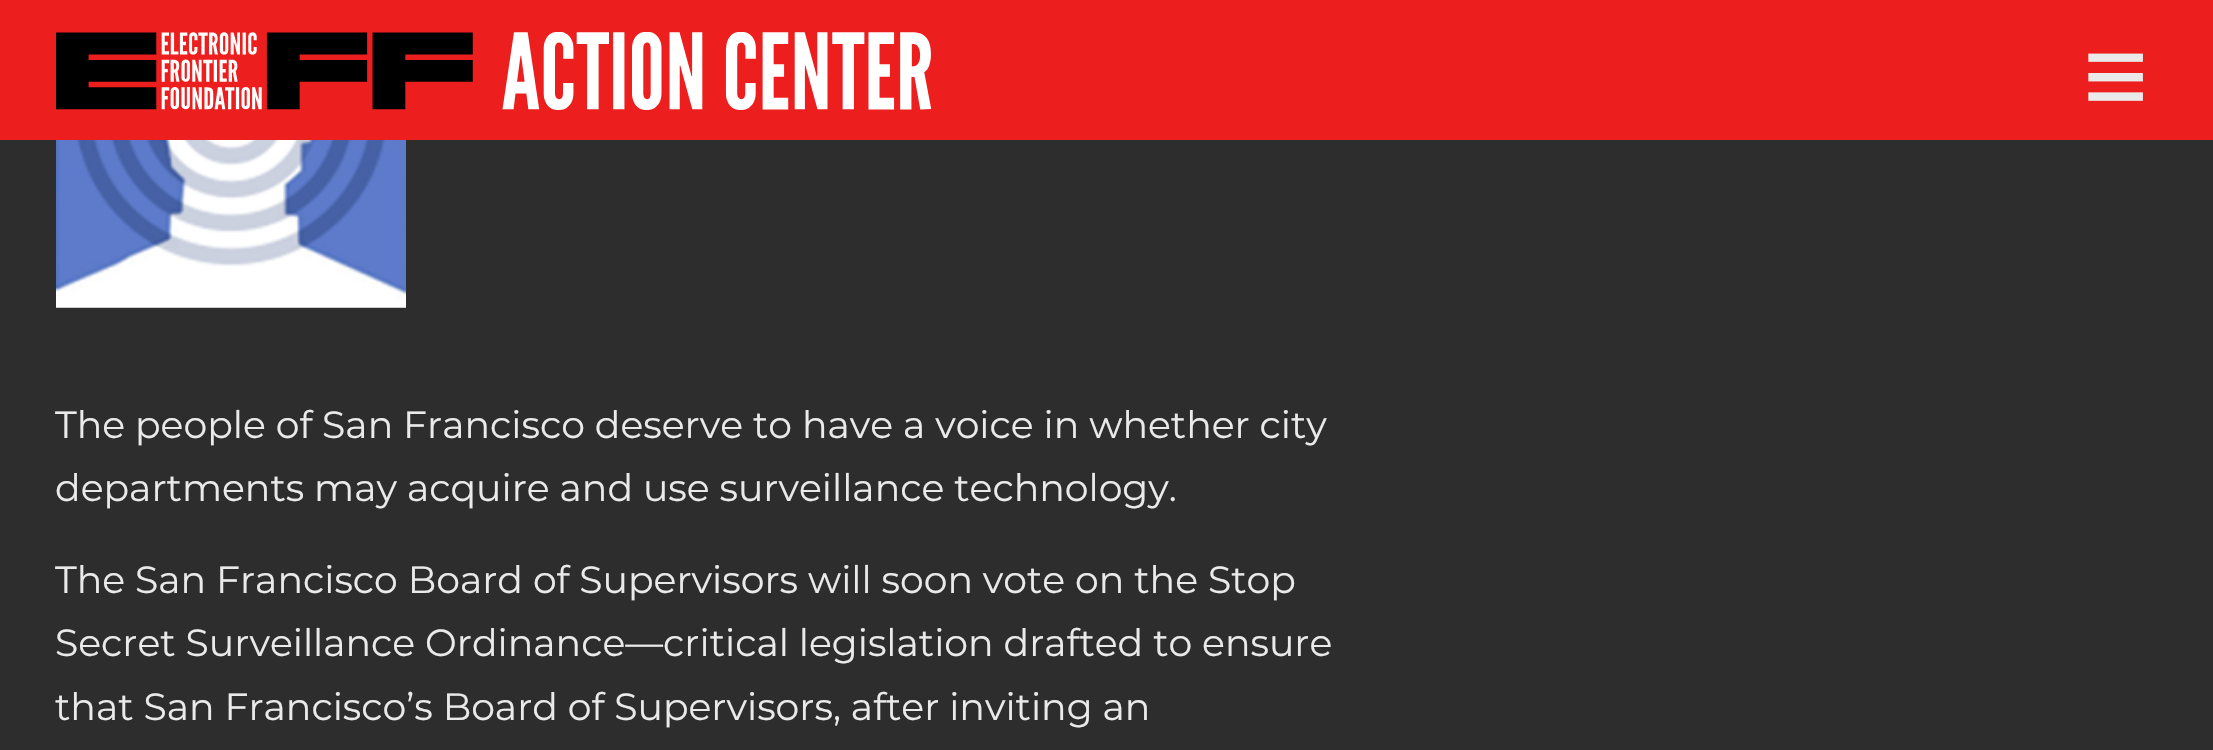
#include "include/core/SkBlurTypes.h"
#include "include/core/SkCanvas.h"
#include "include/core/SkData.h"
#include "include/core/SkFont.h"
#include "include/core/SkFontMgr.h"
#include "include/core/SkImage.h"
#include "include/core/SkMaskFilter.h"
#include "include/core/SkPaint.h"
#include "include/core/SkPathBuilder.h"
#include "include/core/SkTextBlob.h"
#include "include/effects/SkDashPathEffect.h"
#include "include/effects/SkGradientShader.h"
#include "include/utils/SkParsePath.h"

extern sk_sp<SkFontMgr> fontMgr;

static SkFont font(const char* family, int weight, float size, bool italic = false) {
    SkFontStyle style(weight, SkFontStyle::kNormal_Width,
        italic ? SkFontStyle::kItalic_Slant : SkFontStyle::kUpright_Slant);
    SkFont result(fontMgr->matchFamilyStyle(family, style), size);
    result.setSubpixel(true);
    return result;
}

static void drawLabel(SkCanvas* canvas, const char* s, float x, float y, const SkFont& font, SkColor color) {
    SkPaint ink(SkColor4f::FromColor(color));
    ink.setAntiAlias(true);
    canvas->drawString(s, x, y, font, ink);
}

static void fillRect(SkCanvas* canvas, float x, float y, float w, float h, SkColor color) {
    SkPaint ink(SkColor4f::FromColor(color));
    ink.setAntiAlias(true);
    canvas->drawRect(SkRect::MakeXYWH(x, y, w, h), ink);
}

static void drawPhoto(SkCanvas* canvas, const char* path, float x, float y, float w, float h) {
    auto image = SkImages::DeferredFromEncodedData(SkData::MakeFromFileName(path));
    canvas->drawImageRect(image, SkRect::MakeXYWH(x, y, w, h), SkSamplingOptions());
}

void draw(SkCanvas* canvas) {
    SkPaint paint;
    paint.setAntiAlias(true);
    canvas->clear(0xFF2D2D2D);
    fillRect(canvas, 0, 0, 2213, 140, 0xFFEC1E1E);
    drawPhoto(canvas, "assets/img1.png", 56, 32, 875, 78);
    SkFont font1 = font("Liberation Sans", 400, 112);
    drawLabel(canvas, "≡", 2083, 114, font1, 0xFFEAEAEA);
    drawPhoto(canvas, "assets/img2.png", 56, 140, 350, 168);
    SkFont font2 = font("Montserrat", 400, 37.8f);
    drawLabel(canvas, "The people of San Francisco deserve to have a voice in whether city", 55, 438, font2, 0xFFEAEAEA);
    drawLabel(canvas, "departments may acquire and use surveillance technology.", 55, 501, font2, 0xFFEAEAEA);
    drawLabel(canvas, "The San Francisco Board of Supervisors will soon vote on the Stop", 55, 593, font2, 0xFFEAEAEA);
    drawLabel(canvas, "Secret Surveillance Ordinance—critical legislation drafted to ensure", 55, 656, font2, 0xFFEAEAEA);
    drawLabel(canvas, "that San Francisco’s Board of Supervisors, after inviting an", 55, 720, font2, 0xFFEAEAEA);
}
